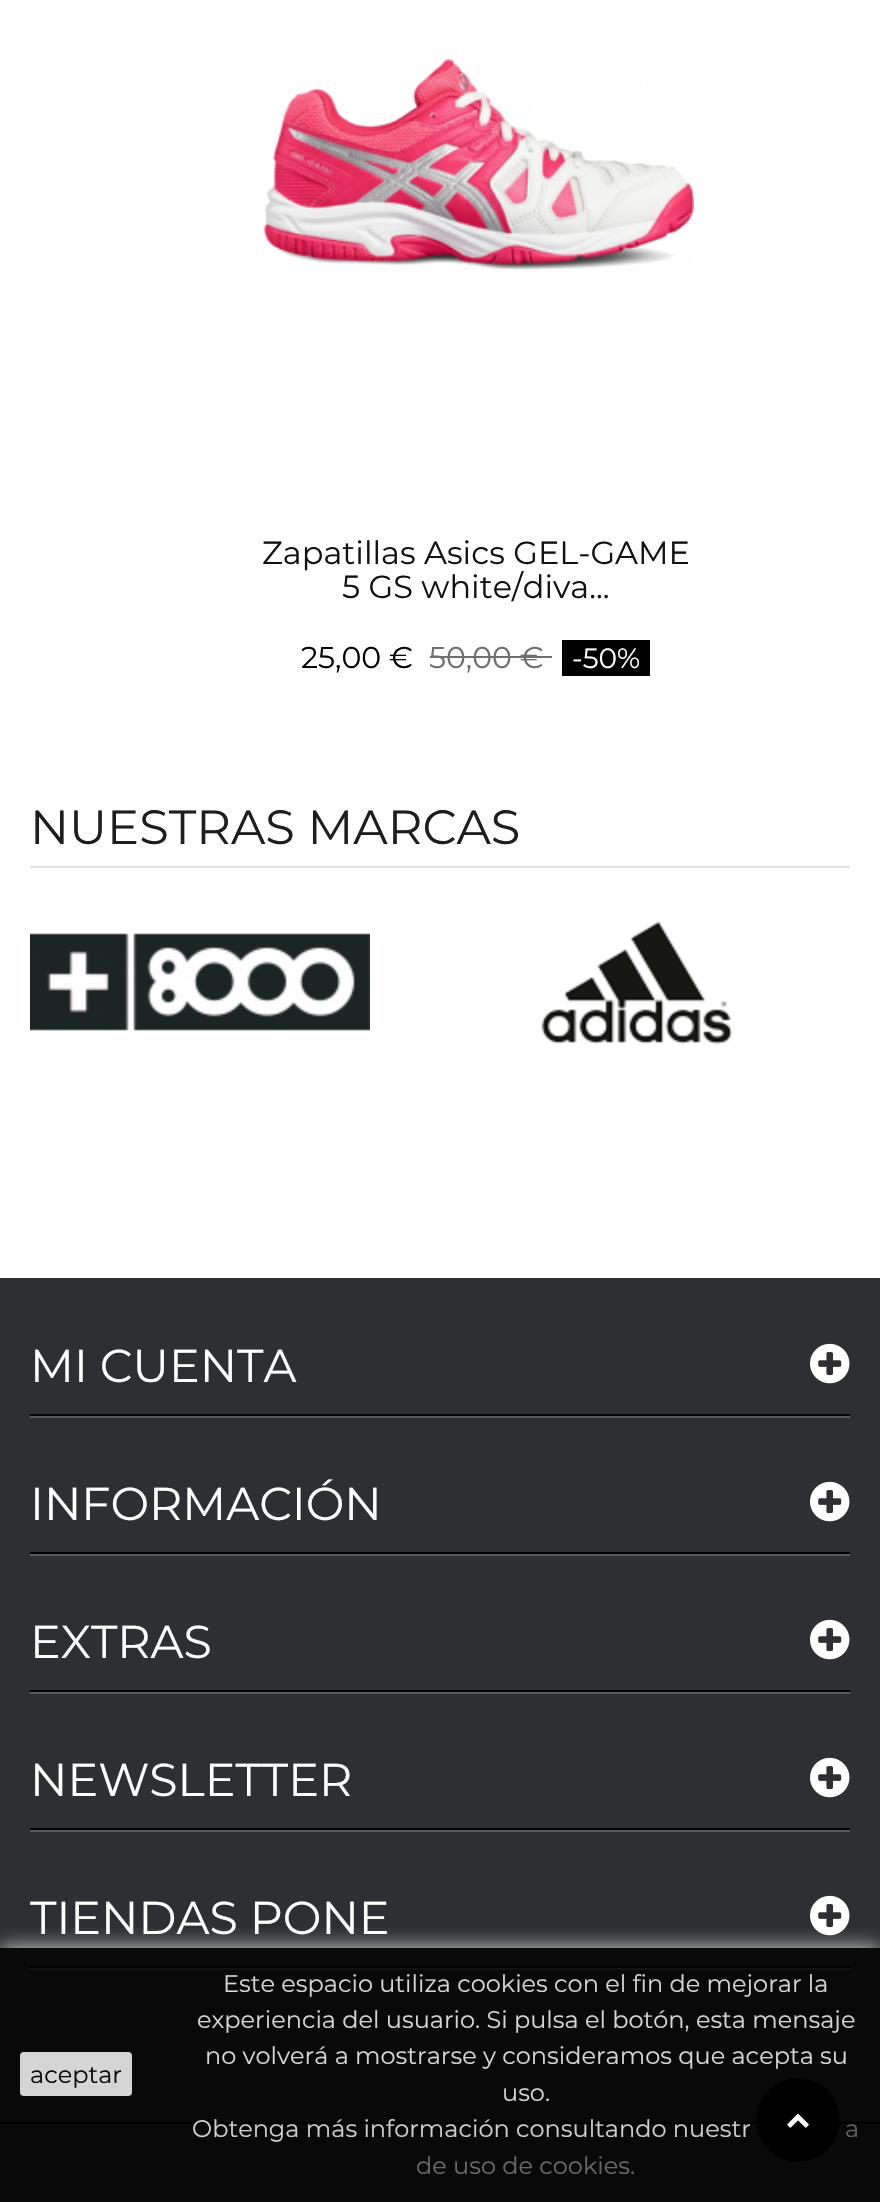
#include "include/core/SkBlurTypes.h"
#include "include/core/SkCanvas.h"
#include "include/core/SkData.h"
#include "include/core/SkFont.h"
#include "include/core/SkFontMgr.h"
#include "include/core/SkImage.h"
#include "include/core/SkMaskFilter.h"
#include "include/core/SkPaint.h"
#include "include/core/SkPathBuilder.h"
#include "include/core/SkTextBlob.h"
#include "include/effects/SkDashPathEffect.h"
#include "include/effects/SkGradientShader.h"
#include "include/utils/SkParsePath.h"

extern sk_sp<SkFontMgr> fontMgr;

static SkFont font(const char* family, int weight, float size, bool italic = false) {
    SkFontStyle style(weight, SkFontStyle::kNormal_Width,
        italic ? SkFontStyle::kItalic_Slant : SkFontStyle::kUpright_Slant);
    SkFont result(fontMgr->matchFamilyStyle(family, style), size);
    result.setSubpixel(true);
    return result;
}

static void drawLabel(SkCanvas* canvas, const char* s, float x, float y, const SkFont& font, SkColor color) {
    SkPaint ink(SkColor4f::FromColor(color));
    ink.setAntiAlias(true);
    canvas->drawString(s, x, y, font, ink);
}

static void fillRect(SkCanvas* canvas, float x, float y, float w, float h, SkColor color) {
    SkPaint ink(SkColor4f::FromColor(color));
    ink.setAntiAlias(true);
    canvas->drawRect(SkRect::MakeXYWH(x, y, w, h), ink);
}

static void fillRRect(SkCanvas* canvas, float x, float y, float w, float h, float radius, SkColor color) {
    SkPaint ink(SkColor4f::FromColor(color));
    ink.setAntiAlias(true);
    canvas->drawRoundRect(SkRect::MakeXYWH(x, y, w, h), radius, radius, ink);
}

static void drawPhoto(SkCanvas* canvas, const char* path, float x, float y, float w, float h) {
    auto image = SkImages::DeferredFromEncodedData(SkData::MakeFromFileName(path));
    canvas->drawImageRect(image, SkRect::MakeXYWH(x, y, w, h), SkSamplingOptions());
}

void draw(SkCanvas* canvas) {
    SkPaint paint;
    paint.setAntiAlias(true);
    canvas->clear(0xFFFFFFFF);
    drawPhoto(canvas, "assets/img1.png", 264, 58, 430, 213);
    SkFont font1 = font("Montserrat", 400, 32);
    drawLabel(canvas, "Zapatillas Asics GEL-GAME", 262, 564, font1, 0xFF121212);
    drawLabel(canvas, "5 GS white/diva...", 342, 598, font1, 0xFF121212);
    SkFont font2 = font("Montserrat", 400, 30);
    drawLabel(canvas, "25,00 €", 301, 668, font2, 0xFF000000);
    drawLabel(canvas, "50,00 €", 429, 668, font2, 0xFF6F6F6F);
    fillRect(canvas, 430, 656, 122, 2, 0xFF6F6F6F);
    fillRect(canvas, 562, 640, 88, 36, 0xFF000000);
    SkFont font3 = font("Montserrat", 400, 28);
    drawLabel(canvas, "-50%", 572, 668, font3, 0xFFFFFFFF);
    fillRect(canvas, 30, 866, 820, 2, 0xFFE2DFDF);
    SkFont font4 = font("Montserrat", 400, 48);
    drawLabel(canvas, "NUESTRAS MARCAS", 30, 844, font4, 0xFF1E1E21);
    drawPhoto(canvas, "assets/img2.png", 30, 933, 340, 98);
    drawPhoto(canvas, "assets/img3.png", 541, 921, 192, 124);
    fillRect(canvas, 0, 1278, 880, 670, 0xFF2E2F33);
    fillRect(canvas, 0, 1948, 880, 174, 0xFF09090A);
    fillRect(canvas, 0, 2122, 880, 2, 0xFF000000);
    fillRect(canvas, 30, 1416, 820, 2, 0xFF58595C);
    fillRect(canvas, 30, 1414, 820, 2, 0xFF000000);
    SkFont font5 = font("Montserrat", 400, 46);
    drawLabel(canvas, "MI CUENTA", 30, 1382, font5, 0xFFFFFFFF);
    drawPhoto(canvas, "assets/img4.png", 810, 1343, 40, 41);
    fillRect(canvas, 30, 1554, 820, 2, 0xFF58595C);
    fillRect(canvas, 30, 1552, 820, 2, 0xFF000000);
    drawLabel(canvas, "INFORMACIÓN", 30, 1520, font5, 0xFFFFFFFF);
    drawPhoto(canvas, "assets/img4.png", 810, 1481, 40, 41);
    fillRect(canvas, 30, 1692, 820, 2, 0xFF58595C);
    fillRect(canvas, 30, 1690, 820, 2, 0xFF000000);
    drawLabel(canvas, "EXTRAS", 30, 1658, font5, 0xFFFFFFFF);
    drawPhoto(canvas, "assets/img4.png", 810, 1619, 40, 41);
    fillRect(canvas, 30, 1830, 820, 2, 0xFF58595C);
    fillRect(canvas, 30, 1828, 820, 2, 0xFF000000);
    drawLabel(canvas, "NEWSLETTER", 30, 1796, font5, 0xFFFFFFFF);
    drawPhoto(canvas, "assets/img4.png", 810, 1757, 40, 41);
    fillRect(canvas, 30, 1968, 820, 2, 0xFF121212);
    fillRect(canvas, 30, 1966, 820, 2, 0xFF000000);
    drawLabel(canvas, "TIENDAS PONE", 30, 1934, font5, 0xFFFFFFFF);
    drawPhoto(canvas, "assets/img4.png", 810, 1895, 40, 41);
    fillRect(canvas, 0, 2124, 880, 78, 0xFF09090A);
    canvas->save();
    canvas->clipRect(SkRect::MakeXYWH(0, 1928, 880, 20));
    paint.setColor(0xCCFFFFFF);
    paint.setMaskFilter(SkMaskFilter::MakeBlur(kNormal_SkBlurStyle, 10));
    canvas->drawRect(SkRect::MakeXYWH(0, 1948, 880, 254), paint);
    paint.setMaskFilter(nullptr);
    canvas->restore();
    fillRRect(canvas, 20, 2052, 112, 44, 4, 0xFFD5D5D6);
    SkFont font6 = font("Montserrat", 400, 24);
    drawLabel(canvas, "aceptar", 30, 2083, font6, 0xFF09090A);
    drawLabel(canvas, "Este espacio utiliza cookies con el fin de mejorar la", 223, 1992, font6, 0xFFD5D5D6);
    drawLabel(canvas, "experiencia del usuario. Si pulsa el botón, esta mensaje", 197, 2028, font6, 0xFFD5D5D6);
    drawLabel(canvas, "no volverá a mostrarse y consideramos que acepta su", 205, 2064, font6, 0xFFD5D5D6);
    drawLabel(canvas, "uso.", 502, 2101, font6, 0xFFD5D5D6);
    drawLabel(canvas, "Obtenga más información consultando nuestr", 192, 2137, font6, 0xFFCECECE);
    drawLabel(canvas, "a", 845, 2137, font6, 0xFF616161);
    drawLabel(canvas, "de uso de cookies.", 416, 2174, font6, 0xFF686969);
    paint.setColor(0xFF000000);
    canvas->drawCircle(798, 2120, 42, paint);
    drawPhoto(canvas, "assets/img5.png", 787, 2113, 22, 15);
}
